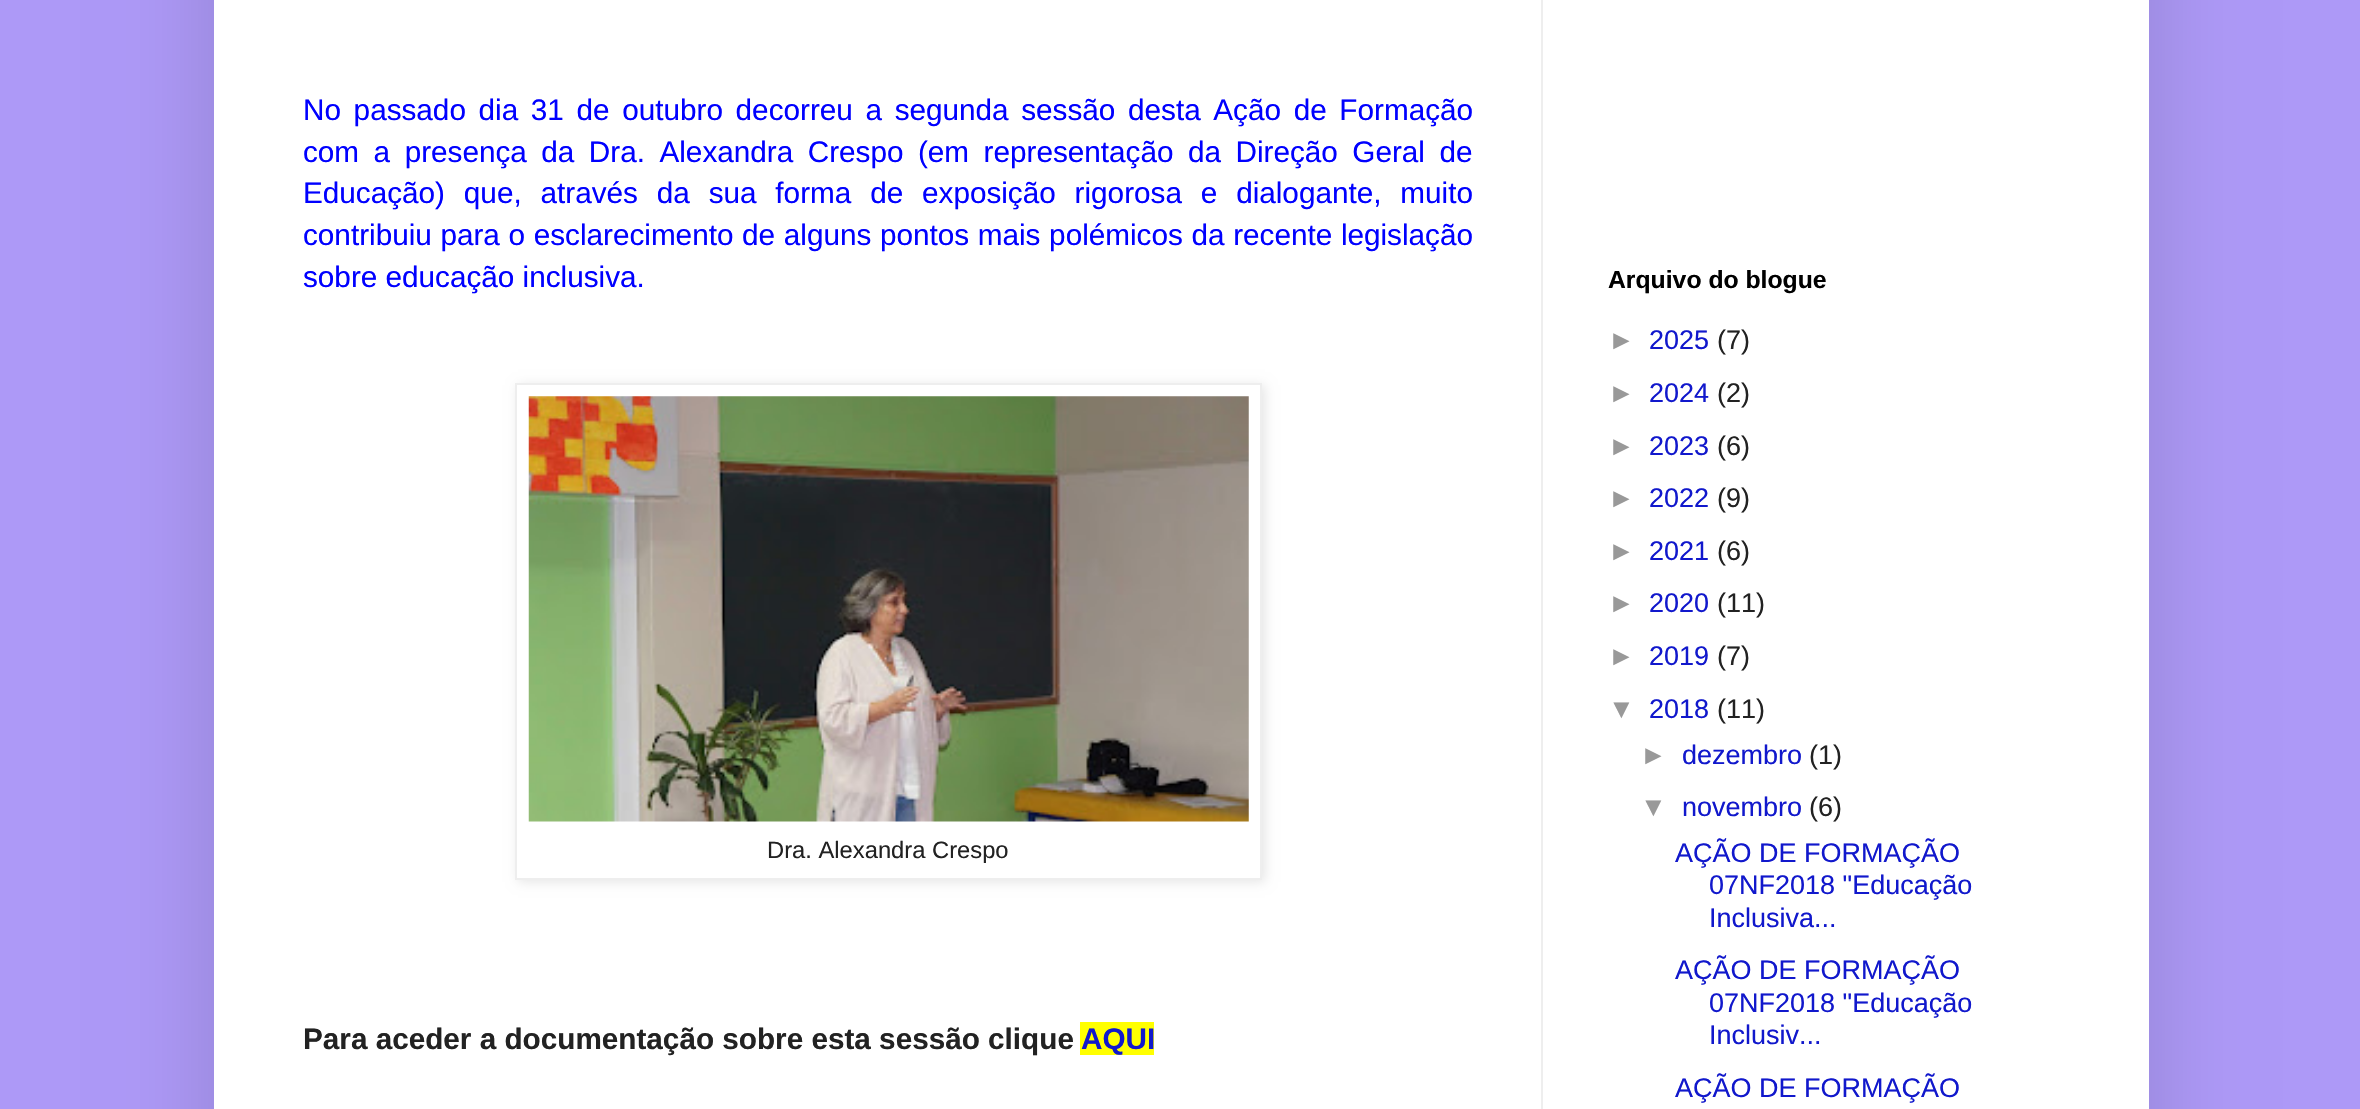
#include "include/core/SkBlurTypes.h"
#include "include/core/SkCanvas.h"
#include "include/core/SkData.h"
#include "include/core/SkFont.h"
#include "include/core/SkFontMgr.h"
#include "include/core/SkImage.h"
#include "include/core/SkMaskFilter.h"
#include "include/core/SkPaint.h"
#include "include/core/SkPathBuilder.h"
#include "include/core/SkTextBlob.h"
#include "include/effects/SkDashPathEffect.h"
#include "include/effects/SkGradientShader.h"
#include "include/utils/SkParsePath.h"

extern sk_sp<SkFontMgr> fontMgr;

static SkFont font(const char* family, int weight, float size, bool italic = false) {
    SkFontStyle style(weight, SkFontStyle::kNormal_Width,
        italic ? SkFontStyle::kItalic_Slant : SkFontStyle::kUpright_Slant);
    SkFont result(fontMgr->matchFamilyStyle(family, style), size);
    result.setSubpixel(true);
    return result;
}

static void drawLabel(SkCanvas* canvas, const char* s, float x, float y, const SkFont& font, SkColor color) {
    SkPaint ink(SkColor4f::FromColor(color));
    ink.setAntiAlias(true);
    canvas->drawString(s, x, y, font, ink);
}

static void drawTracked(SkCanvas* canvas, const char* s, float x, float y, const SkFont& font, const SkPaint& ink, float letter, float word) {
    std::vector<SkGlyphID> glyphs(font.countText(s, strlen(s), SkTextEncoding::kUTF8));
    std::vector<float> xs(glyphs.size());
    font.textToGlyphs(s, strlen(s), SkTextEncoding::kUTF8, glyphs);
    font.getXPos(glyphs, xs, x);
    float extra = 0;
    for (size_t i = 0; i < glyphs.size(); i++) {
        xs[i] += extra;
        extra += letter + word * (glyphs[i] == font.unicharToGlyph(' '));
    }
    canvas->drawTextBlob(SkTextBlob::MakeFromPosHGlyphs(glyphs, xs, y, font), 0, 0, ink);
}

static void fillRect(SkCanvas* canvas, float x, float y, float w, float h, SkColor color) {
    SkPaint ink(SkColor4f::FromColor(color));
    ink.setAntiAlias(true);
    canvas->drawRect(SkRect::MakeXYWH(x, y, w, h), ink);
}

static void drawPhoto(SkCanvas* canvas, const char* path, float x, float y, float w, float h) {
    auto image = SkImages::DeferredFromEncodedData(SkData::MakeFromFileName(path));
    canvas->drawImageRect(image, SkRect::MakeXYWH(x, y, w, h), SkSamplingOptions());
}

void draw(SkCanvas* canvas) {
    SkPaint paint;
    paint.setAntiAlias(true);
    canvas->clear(0xFFAD99F7);
    paint.setColor(0x26000000);
    paint.setMaskFilter(SkMaskFilter::MakeBlur(kNormal_SkBlurStyle, 45));
    canvas->drawRect(SkRect::MakeXYWH(214, -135, 1935, 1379), paint);
    paint.setMaskFilter(nullptr);
    fillRect(canvas, 214, 0, 1935, 1109, 0xFFFFFFFF);
    fillRect(canvas, 1541, 0, 2, 1109, 0xFFEEEEEE);
    SkFont font1 = font("Liberation Sans", 400, 29.7f);
    paint.setColor(0xFF0000FF);
    drawTracked(canvas, "No passado dia 31 de outubro decorreu a segunda sessão desta Ação de Formação", 303, 120, font1, paint, 0, 4.4f);
    drawTracked(canvas, "com a presença da Dra. Alexandra Crespo (em representação da Direção Geral de", 303, 162, font1, paint, 0, 6.25f);
    drawTracked(canvas, "Educação) que, através da sua forma de exposição rigorosa e dialogante, muito", 303, 203, font1, paint, 0, 10.6f);
    drawTracked(canvas, "contribuiu para o esclarecimento de alguns pontos mais polémicos da recente legislação", 303, 245, font1, paint, 0, 0.4f);
    drawLabel(canvas, "sobre educação inclusiva.", 303, 287, font1, 0xFF0000FF);
    paint.setColor(0x1A000000);
    paint.setMaskFilter(SkMaskFilter::MakeBlur(kNormal_SkBlurStyle, 5.5f));
    canvas->drawRect(SkRect::MakeXYWH(518, 385, 747, 497), paint);
    paint.setMaskFilter(nullptr);
    paint.setColor(0xFFFFFFFF);
    canvas->drawRect(SkRect::MakeXYWH(516, 384, 745, 495), paint);
    paint.setStroke(true);
    paint.setStrokeWidth(2);
    paint.setColor(0xFFEEEEEE);
    canvas->drawRect(SkRect::MakeXYWH(516, 384, 745, 495), paint);
    drawPhoto(canvas, "assets/img1.png", 528, 396, 721, 426);
    SkFont font2 = font("Liberation Sans", 400, 23.75f);
    drawLabel(canvas, "Dra. Alexandra Crespo", 767, 858, font2, 0xFF222222);
    SkFont font3 = font("Liberation Sans", 700, 29.7f);
    drawLabel(canvas, "Para aceder a documentação sobre esta sessão clique", 303, 1049, font3, 0xFF222222);
    fillRect(canvas, 1080, 1022, 74, 33, 0xFFFFFF00);
    drawLabel(canvas, "AQUI", 1081, 1049, font3, 0xFF1118CC);
    SkFont font4 = font("Liberation Sans", 700, 24.75f);
    drawLabel(canvas, "Arquivo do blogue", 1608, 288, font4, 0xFF000000);
    SkFont font5 = font("Liberation Sans", 400, 27);
    drawLabel(canvas, "►", 1608, 349, font5, 0xFF999999);
    drawLabel(canvas, "2025", 1649, 349, font5, 0xFF1118CC);
    drawLabel(canvas, "(7)", 1717, 349, font5, 0xFF222222);
    drawLabel(canvas, "►", 1608, 402, font5, 0xFF999999);
    drawLabel(canvas, "2024", 1649, 402, font5, 0xFF1118CC);
    drawLabel(canvas, "(2)", 1717, 402, font5, 0xFF222222);
    drawLabel(canvas, "►", 1608, 455, font5, 0xFF999999);
    drawLabel(canvas, "2023", 1649, 455, font5, 0xFF1118CC);
    drawLabel(canvas, "(6)", 1717, 455, font5, 0xFF222222);
    drawLabel(canvas, "►", 1608, 507, font5, 0xFF999999);
    drawLabel(canvas, "2022", 1649, 507, font5, 0xFF1118CC);
    drawLabel(canvas, "(9)", 1717, 507, font5, 0xFF222222);
    drawLabel(canvas, "►", 1608, 560, font5, 0xFF999999);
    drawLabel(canvas, "2021", 1649, 560, font5, 0xFF1118CC);
    drawLabel(canvas, "(6)", 1717, 560, font5, 0xFF222222);
    drawLabel(canvas, "►", 1608, 612, font5, 0xFF999999);
    drawLabel(canvas, "2020", 1649, 612, font5, 0xFF1118CC);
    drawLabel(canvas, "(11)", 1717, 612, font5, 0xFF222222);
    drawLabel(canvas, "►", 1608, 665, font5, 0xFF999999);
    drawLabel(canvas, "2019", 1649, 665, font5, 0xFF1118CC);
    drawLabel(canvas, "(7)", 1717, 665, font5, 0xFF222222);
    drawLabel(canvas, "▼", 1608, 718, font5, 0xFF999999);
    drawLabel(canvas, "2018", 1649, 718, font5, 0xFF1118CC);
    drawLabel(canvas, "(11)", 1717, 718, font5, 0xFF222222);
    drawLabel(canvas, "►", 1640, 764, font5, 0xFF999999);
    drawLabel(canvas, "dezembro", 1682, 764, font5, 0xFF1118CC);
    drawLabel(canvas, "(1)", 1809, 764, font5, 0xFF222222);
    drawLabel(canvas, "▼", 1640, 816, font5, 0xFF999999);
    drawLabel(canvas, "novembro", 1682, 816, font5, 0xFF1118CC);
    drawLabel(canvas, "(6)", 1809, 816, font5, 0xFF222222);
    drawLabel(canvas, "AÇÃO DE FORMAÇÃO", 1675, 862, font5, 0xFF1118CC);
    drawLabel(canvas, "07NF2018 \"Educação", 1709, 894, font5, 0xFF1118CC);
    drawLabel(canvas, "Inclusiva...", 1709, 927, font5, 0xFF1118CC);
    drawLabel(canvas, "AÇÃO DE FORMAÇÃO", 1675, 979, font5, 0xFF1118CC);
    drawLabel(canvas, "07NF2018 \"Educação", 1709, 1012, font5, 0xFF1118CC);
    drawLabel(canvas, "Inclusiv...", 1709, 1044, font5, 0xFF1118CC);
    drawLabel(canvas, "AÇÃO DE FORMAÇÃO", 1675, 1097, font5, 0xFF1118CC);
}
